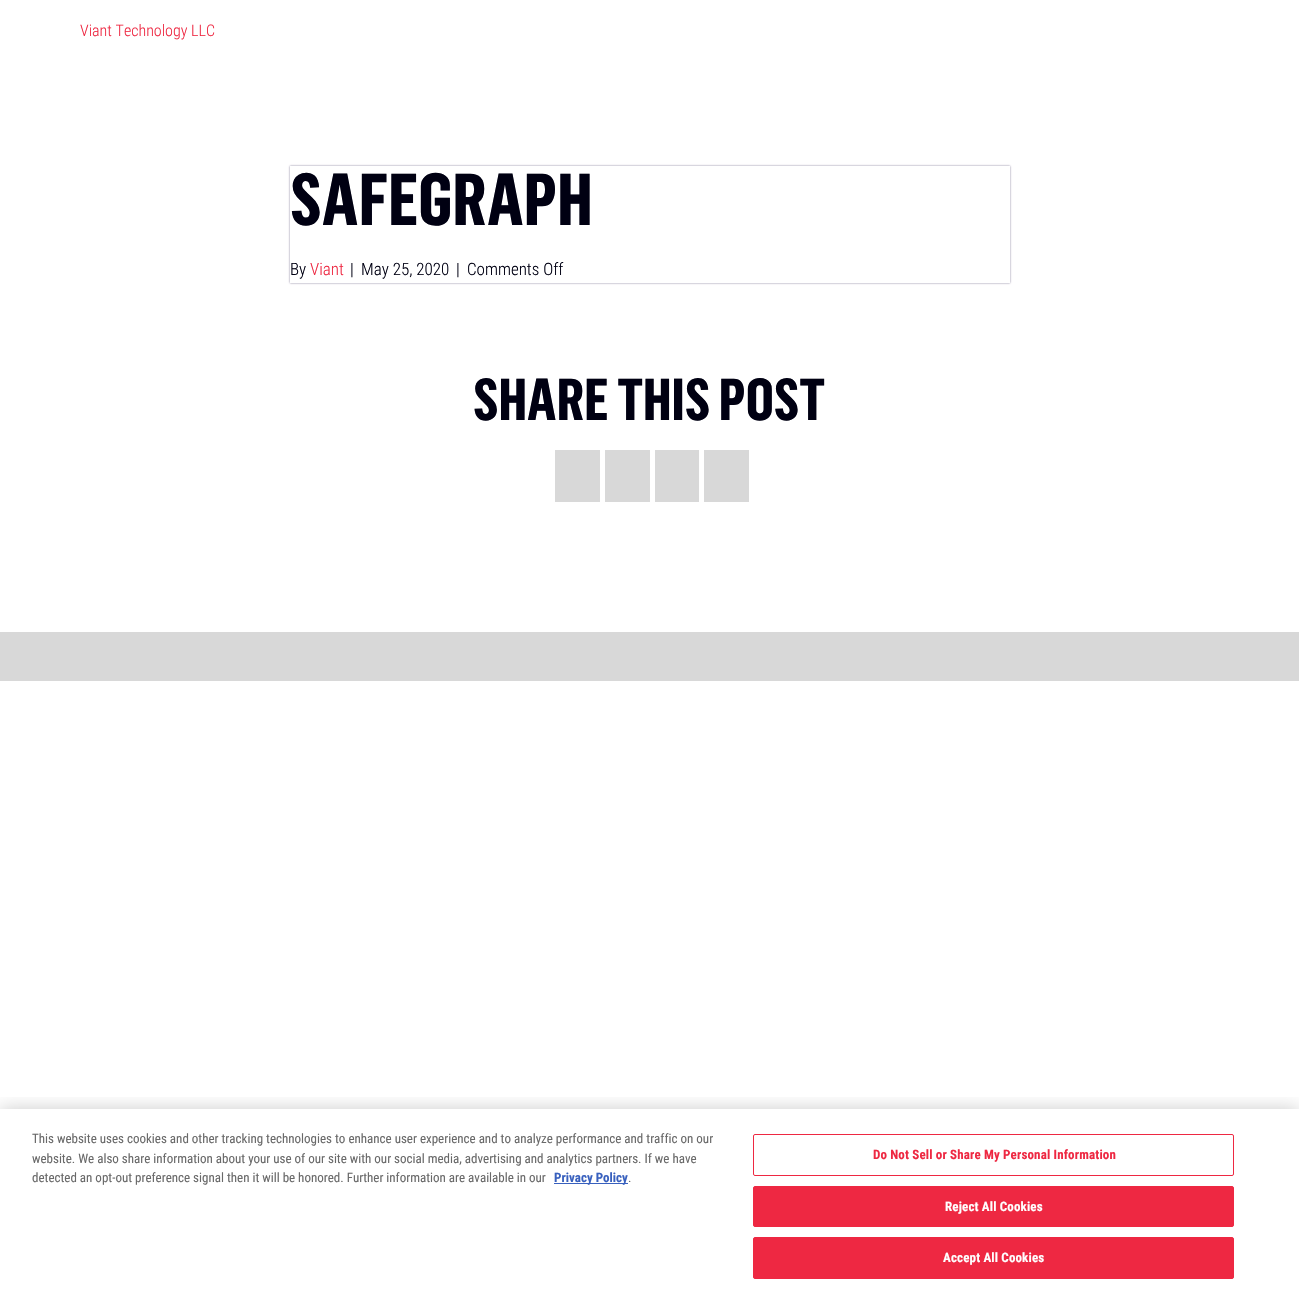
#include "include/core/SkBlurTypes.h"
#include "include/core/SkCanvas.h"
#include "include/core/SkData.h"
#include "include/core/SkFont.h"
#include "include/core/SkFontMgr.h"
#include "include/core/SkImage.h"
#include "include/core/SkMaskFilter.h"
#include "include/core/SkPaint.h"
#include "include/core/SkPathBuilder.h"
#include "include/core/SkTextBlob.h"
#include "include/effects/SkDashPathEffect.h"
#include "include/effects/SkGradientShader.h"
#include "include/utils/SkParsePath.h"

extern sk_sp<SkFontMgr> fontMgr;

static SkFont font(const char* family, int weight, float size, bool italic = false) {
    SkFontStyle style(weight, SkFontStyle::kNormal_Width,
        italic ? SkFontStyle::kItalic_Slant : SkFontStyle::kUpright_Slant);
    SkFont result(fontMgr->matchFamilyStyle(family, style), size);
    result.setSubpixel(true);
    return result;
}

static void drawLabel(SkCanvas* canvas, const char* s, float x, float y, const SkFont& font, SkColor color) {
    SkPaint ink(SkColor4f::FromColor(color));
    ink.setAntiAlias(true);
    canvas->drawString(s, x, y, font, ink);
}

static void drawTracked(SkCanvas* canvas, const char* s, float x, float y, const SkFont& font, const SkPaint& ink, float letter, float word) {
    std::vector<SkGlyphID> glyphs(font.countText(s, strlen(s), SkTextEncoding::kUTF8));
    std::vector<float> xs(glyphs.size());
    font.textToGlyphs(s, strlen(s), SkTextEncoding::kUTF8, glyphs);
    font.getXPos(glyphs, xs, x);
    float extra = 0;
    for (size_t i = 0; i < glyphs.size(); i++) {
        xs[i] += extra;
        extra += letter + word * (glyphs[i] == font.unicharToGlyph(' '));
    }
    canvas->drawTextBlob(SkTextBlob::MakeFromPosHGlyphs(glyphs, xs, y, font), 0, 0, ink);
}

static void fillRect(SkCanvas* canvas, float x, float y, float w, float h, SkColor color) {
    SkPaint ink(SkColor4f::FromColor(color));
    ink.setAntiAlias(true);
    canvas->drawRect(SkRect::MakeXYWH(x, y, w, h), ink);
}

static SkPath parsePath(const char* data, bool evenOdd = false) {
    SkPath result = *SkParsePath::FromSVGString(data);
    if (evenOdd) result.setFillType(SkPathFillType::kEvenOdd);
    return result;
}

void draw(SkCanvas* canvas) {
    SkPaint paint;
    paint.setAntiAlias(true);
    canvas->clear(0xFFFFFFFF);
    SkFont font1 = font("Roboto Condensed", 300, 16);
    drawLabel(canvas, "Viant Technology LLC", 80, 36, font1, 0xFFEE2842);
    canvas->save();
    canvas->clipPath(parsePath("M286 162H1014V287H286ZM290 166H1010V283H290Z", true), true);
    paint.setColor(0x80070034);
    paint.setMaskFilter(SkMaskFilter::MakeBlur(kNormal_SkBlurStyle, 1));
    canvas->drawRect(SkRect::MakeXYWH(290, 166, 720, 117), paint);
    paint.setMaskFilter(nullptr);
    canvas->restore();
    SkFont font2 = font("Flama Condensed", 700, 72);
    drawLabel(canvas, "SAFEGRAPH", 290, 225, font2, 0xFF000012);
    SkFont font3 = font("Roboto Condensed", 300, 17);
    drawLabel(canvas, "By", 290, 275, font3, 0xFF000012);
    drawLabel(canvas, "Viant", 310, 275, font3, 0xFFEE2842);
    drawLabel(canvas, "|", 350, 275, font3, 0xFF000012);
    drawLabel(canvas, "May 25, 2020", 361, 275, font3, 0xFF000012);
    drawLabel(canvas, "|", 456, 275, font3, 0xFF000012);
    drawLabel(canvas, "Comments Off", 467, 275, font3, 0xFF000012);
    SkFont font4 = font("Flama Condensed", 700, 58);
    drawLabel(canvas, "SHARE THIS POST", 473, 420, font4, 0xFF000012);
    fillRect(canvas, 555, 450, 45, 52, 0xFFD8D8D8);
    fillRect(canvas, 605, 450, 45, 52, 0xFFD8D8D8);
    fillRect(canvas, 655, 450, 44, 52, 0xFFD8D8D8);
    fillRect(canvas, 704, 450, 45, 52, 0xFFD8D8D8);
    fillRect(canvas, 0, 632, 1299, 49, 0xFFD8D8D8);
    canvas->save();
    canvas->clipRect(SkRect::MakeXYWH(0, 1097, 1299, 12));
    paint.setColor(0x33000000);
    paint.setMaskFilter(SkMaskFilter::MakeBlur(kNormal_SkBlurStyle, 9));
    canvas->drawRect(SkRect::MakeXYWH(0, 1109, 1299, 190), paint);
    paint.setMaskFilter(nullptr);
    canvas->restore();
    SkFont font5 = font("Roboto Condensed", 400, 13);
    drawLabel(canvas, "This website uses cookies and other tracking technologies to enhance user experience and to analyze performance and traffic on our", 32, 1143, font5, 0xFF696969);
    drawLabel(canvas, "website. We also share information about your use of our site with our social media, advertising and analytics partners. If we have", 32, 1163, font5, 0xFF696969);
    drawLabel(canvas, "detected an opt-out preference signal then it will be honored. Further information are available in our", 32, 1182, font5, 0xFF696969);
    fillRect(canvas, 554, 1183, 74, 1, 0xFF3860BE);
    SkFont font6 = font("Roboto Condensed", 700, 13);
    drawLabel(canvas, "Privacy Policy", 554, 1182, font6, 0xFF3860BE);
    drawLabel(canvas, ".", 628, 1182, font5, 0xFF696969);
    paint.setStroke(true);
    paint.setStrokeWidth(1);
    paint.setColor(0xFFEE2842);
    canvas->drawRoundRect(SkRect::MakeXYWH(753.5f, 1134.5f, 480, 41), 1.5f, 1.5f, paint);
    paint.setStroke(false);
    drawTracked(canvas, "Do Not Sell or Share My Personal Information", 873, 1159, font6, paint, 0.15f, 0);
    canvas->drawRoundRect(SkRect::MakeXYWH(753.5f, 1186.5f, 480, 40), 1.5f, 1.5f, paint);
    paint.setStroke(true);
    canvas->drawRoundRect(SkRect::MakeXYWH(753.5f, 1186.5f, 480, 40), 1.5f, 1.5f, paint);
    paint.setStroke(false);
    paint.setColor(0xFFFFFFFF);
    drawTracked(canvas, "Reject All Cookies", 945, 1211, font6, paint, 0.15f, 0);
    paint.setColor(0xFFEE2842);
    canvas->drawRoundRect(SkRect::MakeXYWH(753.5f, 1237.5f, 480, 41), 1.5f, 1.5f, paint);
    paint.setStroke(true);
    canvas->drawRoundRect(SkRect::MakeXYWH(753.5f, 1237.5f, 480, 41), 1.5f, 1.5f, paint);
    paint.setStroke(false);
    paint.setColor(0xFFFFFFFF);
    drawTracked(canvas, "Accept All Cookies", 943, 1262, font6, paint, 0.15f, 0);
}
